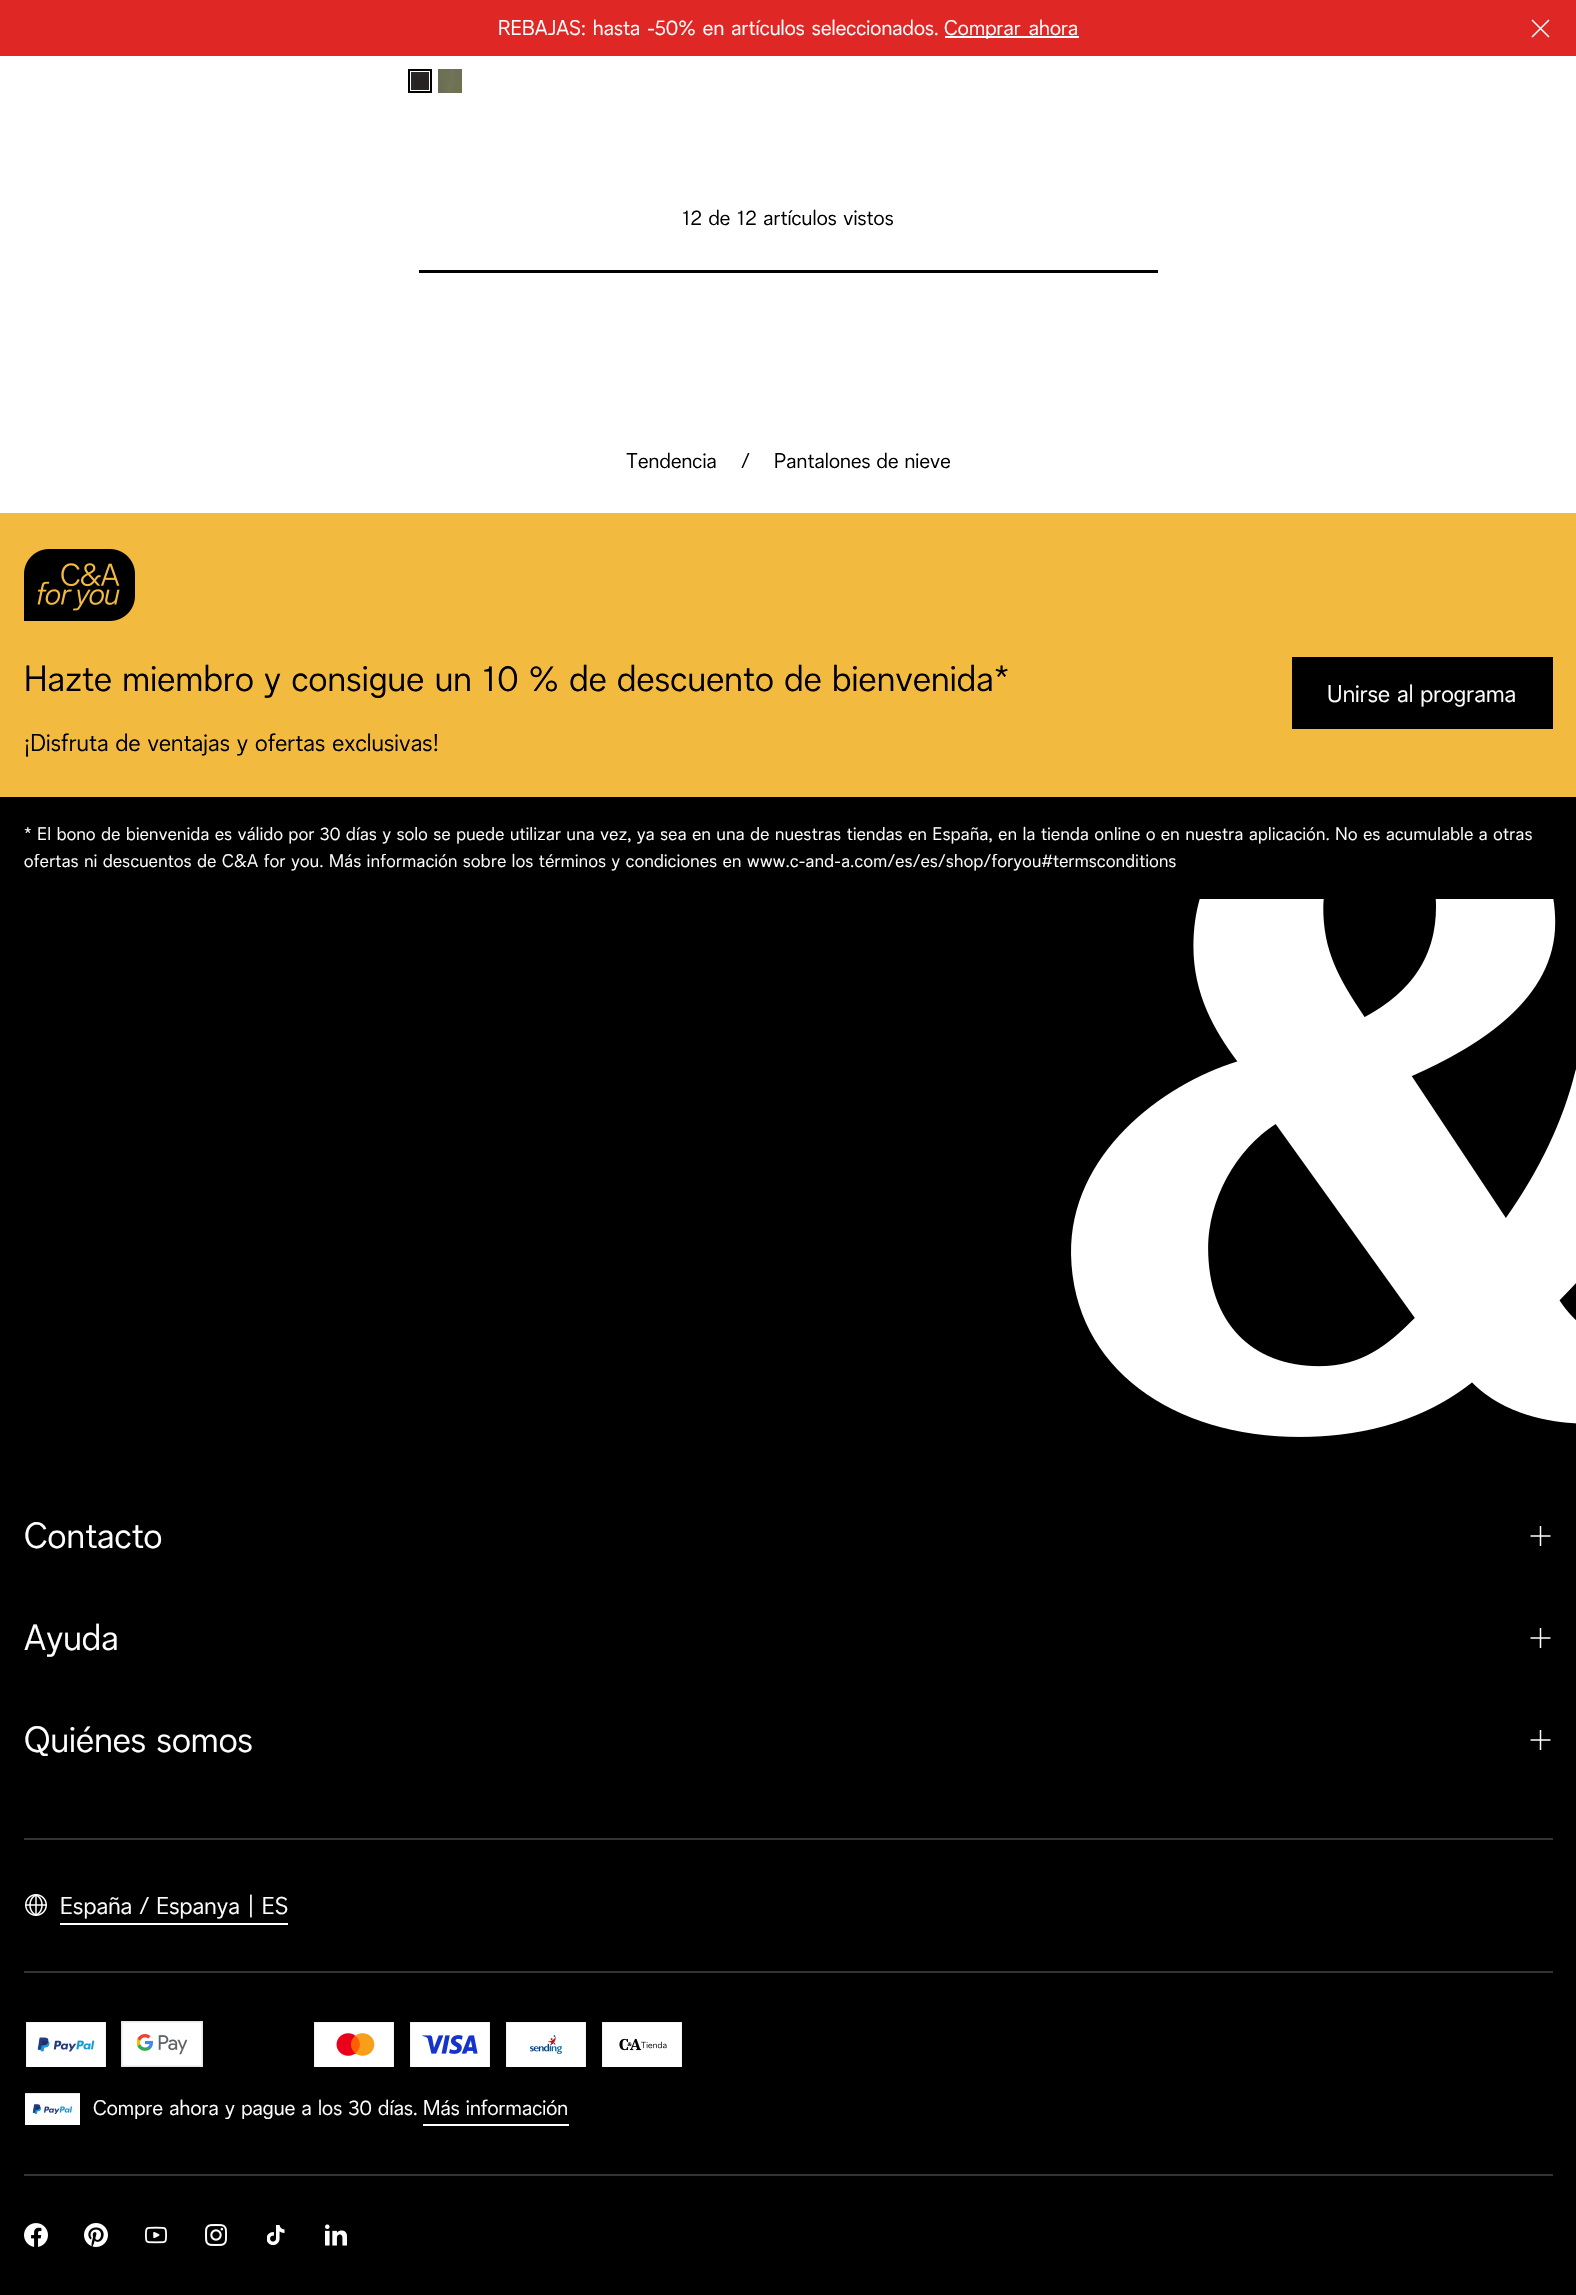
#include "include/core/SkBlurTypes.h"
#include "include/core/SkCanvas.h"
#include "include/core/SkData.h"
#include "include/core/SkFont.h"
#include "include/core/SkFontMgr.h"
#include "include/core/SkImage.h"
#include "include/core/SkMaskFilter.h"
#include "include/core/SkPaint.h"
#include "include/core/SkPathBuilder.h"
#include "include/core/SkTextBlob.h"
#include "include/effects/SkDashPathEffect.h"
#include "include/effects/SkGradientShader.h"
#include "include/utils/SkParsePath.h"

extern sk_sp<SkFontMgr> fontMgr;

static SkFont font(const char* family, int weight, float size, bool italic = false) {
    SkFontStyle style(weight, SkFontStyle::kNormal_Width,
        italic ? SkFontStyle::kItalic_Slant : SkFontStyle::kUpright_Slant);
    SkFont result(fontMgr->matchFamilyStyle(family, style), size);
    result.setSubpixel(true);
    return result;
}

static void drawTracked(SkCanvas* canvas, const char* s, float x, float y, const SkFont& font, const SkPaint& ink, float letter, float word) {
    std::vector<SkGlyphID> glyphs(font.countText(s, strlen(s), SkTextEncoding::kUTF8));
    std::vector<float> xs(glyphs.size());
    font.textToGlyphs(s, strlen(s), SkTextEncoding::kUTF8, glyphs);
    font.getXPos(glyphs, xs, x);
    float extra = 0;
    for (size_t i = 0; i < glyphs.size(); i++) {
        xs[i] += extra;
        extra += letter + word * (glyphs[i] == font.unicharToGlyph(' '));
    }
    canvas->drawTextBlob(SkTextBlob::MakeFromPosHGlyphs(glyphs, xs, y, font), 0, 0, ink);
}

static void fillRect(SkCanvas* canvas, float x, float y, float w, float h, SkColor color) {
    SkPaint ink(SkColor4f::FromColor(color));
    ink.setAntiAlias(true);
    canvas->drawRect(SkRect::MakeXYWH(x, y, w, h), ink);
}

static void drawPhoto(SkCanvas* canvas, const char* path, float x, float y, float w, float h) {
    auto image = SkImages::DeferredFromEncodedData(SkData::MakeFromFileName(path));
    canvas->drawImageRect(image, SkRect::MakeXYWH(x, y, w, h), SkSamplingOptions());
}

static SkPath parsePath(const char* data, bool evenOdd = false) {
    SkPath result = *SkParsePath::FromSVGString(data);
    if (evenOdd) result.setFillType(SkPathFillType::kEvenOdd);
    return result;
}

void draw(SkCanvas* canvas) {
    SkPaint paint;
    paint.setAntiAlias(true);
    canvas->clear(0xFFFFFFFF);
    fillRect(canvas, 0, 0, 1576, 56, 0xFFDF2826);
    SkFont font1 = font("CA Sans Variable", 400, 21);
    paint.setColor(0xFFFFFFFF);
    drawTracked(canvas, "REBAJAS: hasta -50% en artículos seleccionados.", 498, 35, font1, paint, 0.1f, 1);
    fillRect(canvas, 945, 36, 134, 2, 0xFFFFFFFF);
    drawTracked(canvas, "Comprar ahora", 944, 35, font1, paint, 0.1f, 2);
    paint.setStroke(true);
    paint.setStrokeWidth(1.5f);
    paint.setStrokeJoin(SkPaint::kRound_Join);
    canvas->drawPath(parsePath("M1549 20L1532 37M1549 37L1532 20"), paint);
    paint.setStrokeWidth(2);
    paint.setStrokeJoin(SkPaint::kMiter_Join);
    paint.setColor(0xFF000000);
    canvas->drawRect(SkRect::MakeXYWH(409, 70, 22, 22), paint);
    drawPhoto(canvas, "assets/img1.png", 411, 72, 18, 18);
    drawPhoto(canvas, "assets/img2.png", 438, 69, 24, 24);
    paint.setStroke(false);
    drawTracked(canvas, "12 de 12 artículos vistos", 682, 225, font1, paint, 0.1f, 0.5f);
    fillRect(canvas, 419, 270, 739, 3, 0xFF000000);
    drawTracked(canvas, "Tendencia", 626, 468, font1, paint, 0.1f, 0);
    drawTracked(canvas, "/", 741, 468, font1, paint, 0.1f, 0);
    drawTracked(canvas, "Pantalones de nieve", 774, 468, font1, paint, 0.1f, 0);
    fillRect(canvas, 0, 513, 1576, 284, 0xFFF3BA40);
    drawPhoto(canvas, "assets/img3.png", 24, 549, 111, 72);
    SkFont font2 = font("CA Sans Variable", 400, 36);
    drawTracked(canvas, "Hazte miembro y consigue un 10 % de descuento de bienvenida*", 24, 691, font2, paint, 0.18f, 0);
    SkFont font3 = font("CA Sans Variable", 400, 24);
    drawTracked(canvas, "¡Disfruta de ventajas y ofertas exclusivas!", 24, 751, font3, paint, 0.1f, 0);
    fillRect(canvas, 1292, 657, 261, 72, 0xFF000000);
    paint.setColor(0xFFFFFFFF);
    drawTracked(canvas, "Unirse al programa", 1327, 702, font3, paint, 0.1f, 0);
    fillRect(canvas, 0, 797, 1576, 1498, 0xFF000000);
    SkFont font4 = font("CA Sans Variable", 400, 18);
    drawTracked(canvas, "* El bono de bienvenida es válido por 30 días y solo se puede utilizar una vez, ya sea en una de nuestras tiendas en España, en la tienda online o en nuestra aplicación. No es acumulable a otras", 24, 840, font4, paint, 0.36f, 0);
    drawTracked(canvas, "ofertas ni descuentos de C&A for you. Más información sobre los términos y condiciones en www.c-and-a.com/es/es/shop/foryou#termsconditions", 24, 867, font4, paint, 0.36f, 0);
    drawPhoto(canvas, "assets/img4.png", 1071, 899, 505, 538);
    drawTracked(canvas, "Contacto", 24, 1548, font2, paint, 0.1f, 0);
    paint.setStroke(true);
    paint.setStrokeWidth(1.5f);
    canvas->drawPath(parsePath("M1540.5 1526V1546M1550.5 1536H1530.5"), paint);
    paint.setStroke(false);
    drawTracked(canvas, "Ayuda", 24, 1650, font2, paint, 0.1f, 0);
    paint.setStroke(true);
    canvas->drawPath(parsePath("M1540.5 1628V1648M1550.5 1638H1530.5"), paint);
    paint.setStroke(false);
    drawTracked(canvas, "Quiénes somos", 24, 1752, font2, paint, 0.1f, 0);
    paint.setStroke(true);
    canvas->drawPath(parsePath("M1540.5 1730V1750M1550.5 1740H1530.5"), paint);
    fillRect(canvas, 24, 1838, 1529, 2, 0xFF333333);
    drawPhoto(canvas, "assets/img5.png", 25, 1894, 22, 22);
    paint.setStroke(false);
    drawTracked(canvas, "España / Espanya | ES", 60, 1914, font3, paint, 0.1f, 0);
    fillRect(canvas, 60, 1923, 228, 2, 0xFFFFFFFF);
    fillRect(canvas, 24, 1971, 1529, 2, 0xFF333333);
    drawPhoto(canvas, "assets/img6.png", 26, 2022, 80, 45);
    drawPhoto(canvas, "assets/img7.png", 121, 2021, 82, 46);
    drawPhoto(canvas, "assets/img8.png", 314, 2022, 80, 45);
    drawPhoto(canvas, "assets/img9.png", 410, 2022, 80, 45);
    drawPhoto(canvas, "assets/img10.png", 506, 2022, 80, 45);
    drawPhoto(canvas, "assets/img11.png", 602, 2022, 80, 45);
    drawPhoto(canvas, "assets/img12.png", 25, 2093, 55, 32);
    drawTracked(canvas, "Compre ahora y pague a los 30 días.", 93, 2115, font1, paint, 0.1f, 0.25f);
    drawTracked(canvas, "Más información", 423, 2115, font1, paint, 0.1f, 0);
    fillRect(canvas, 423, 2124, 146, 2, 0xFFFFFFFF);
    fillRect(canvas, 24, 2174, 1529, 2, 0xFF333333);
    drawPhoto(canvas, "assets/img13.png", 24, 2223, 24, 24);
    drawPhoto(canvas, "assets/img14.png", 84, 2223, 24, 24);
    drawPhoto(canvas, "assets/img15.png", 145, 2226, 22, 18);
    drawPhoto(canvas, "assets/img16.png", 205, 2224, 22, 22);
    drawPhoto(canvas, "assets/img17.png", 267, 2225, 18, 20);
    drawPhoto(canvas, "assets/img18.png", 325, 2224, 22, 22);
}
